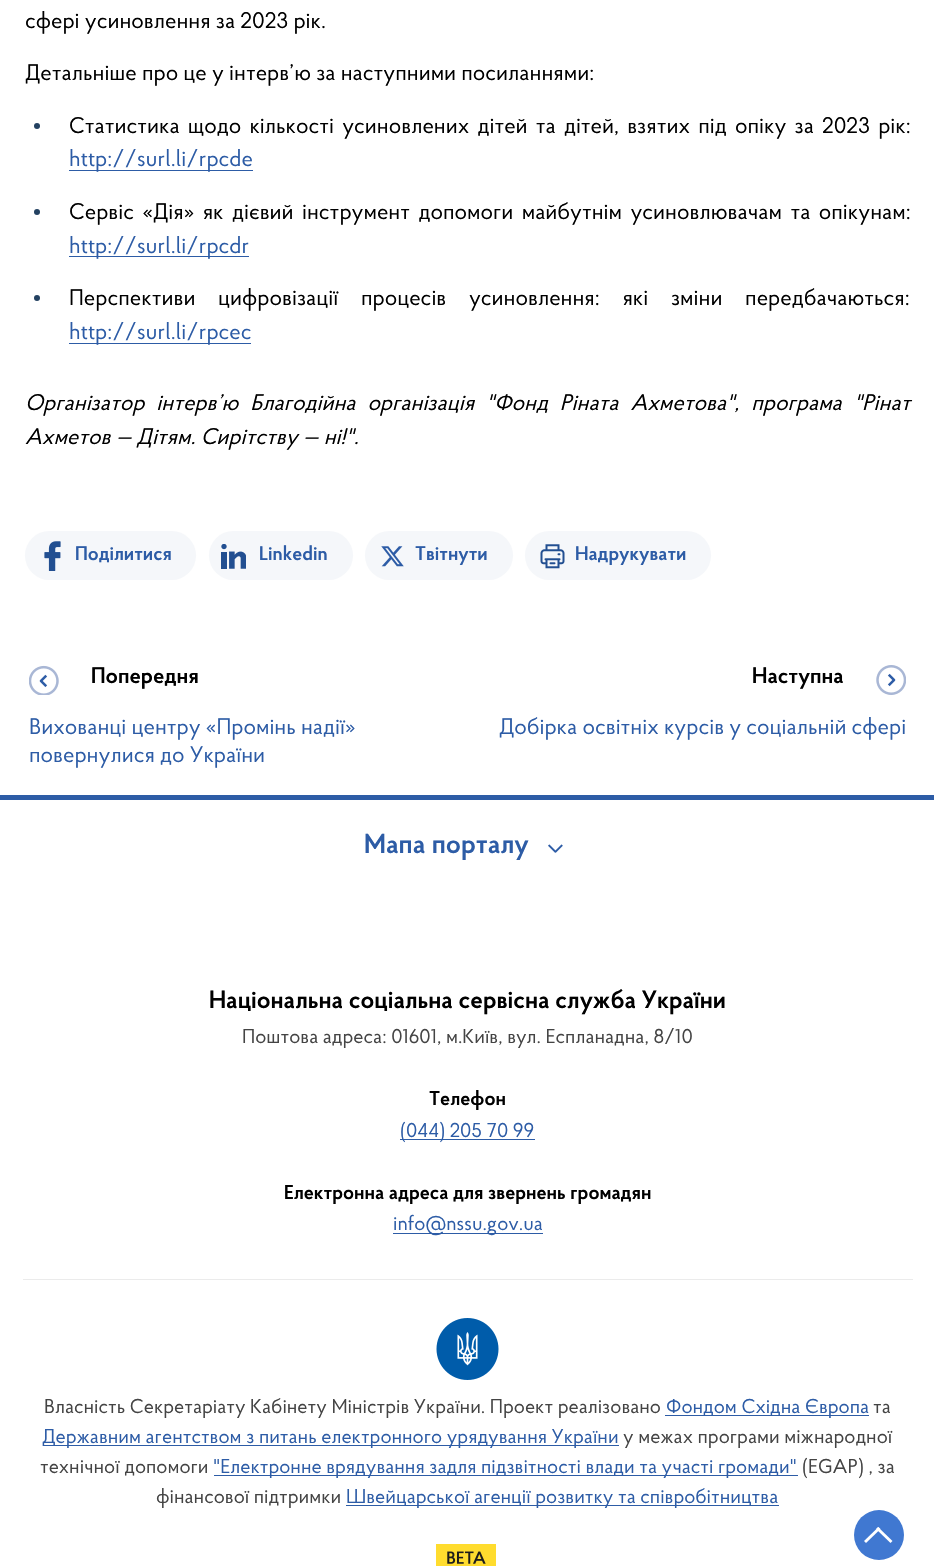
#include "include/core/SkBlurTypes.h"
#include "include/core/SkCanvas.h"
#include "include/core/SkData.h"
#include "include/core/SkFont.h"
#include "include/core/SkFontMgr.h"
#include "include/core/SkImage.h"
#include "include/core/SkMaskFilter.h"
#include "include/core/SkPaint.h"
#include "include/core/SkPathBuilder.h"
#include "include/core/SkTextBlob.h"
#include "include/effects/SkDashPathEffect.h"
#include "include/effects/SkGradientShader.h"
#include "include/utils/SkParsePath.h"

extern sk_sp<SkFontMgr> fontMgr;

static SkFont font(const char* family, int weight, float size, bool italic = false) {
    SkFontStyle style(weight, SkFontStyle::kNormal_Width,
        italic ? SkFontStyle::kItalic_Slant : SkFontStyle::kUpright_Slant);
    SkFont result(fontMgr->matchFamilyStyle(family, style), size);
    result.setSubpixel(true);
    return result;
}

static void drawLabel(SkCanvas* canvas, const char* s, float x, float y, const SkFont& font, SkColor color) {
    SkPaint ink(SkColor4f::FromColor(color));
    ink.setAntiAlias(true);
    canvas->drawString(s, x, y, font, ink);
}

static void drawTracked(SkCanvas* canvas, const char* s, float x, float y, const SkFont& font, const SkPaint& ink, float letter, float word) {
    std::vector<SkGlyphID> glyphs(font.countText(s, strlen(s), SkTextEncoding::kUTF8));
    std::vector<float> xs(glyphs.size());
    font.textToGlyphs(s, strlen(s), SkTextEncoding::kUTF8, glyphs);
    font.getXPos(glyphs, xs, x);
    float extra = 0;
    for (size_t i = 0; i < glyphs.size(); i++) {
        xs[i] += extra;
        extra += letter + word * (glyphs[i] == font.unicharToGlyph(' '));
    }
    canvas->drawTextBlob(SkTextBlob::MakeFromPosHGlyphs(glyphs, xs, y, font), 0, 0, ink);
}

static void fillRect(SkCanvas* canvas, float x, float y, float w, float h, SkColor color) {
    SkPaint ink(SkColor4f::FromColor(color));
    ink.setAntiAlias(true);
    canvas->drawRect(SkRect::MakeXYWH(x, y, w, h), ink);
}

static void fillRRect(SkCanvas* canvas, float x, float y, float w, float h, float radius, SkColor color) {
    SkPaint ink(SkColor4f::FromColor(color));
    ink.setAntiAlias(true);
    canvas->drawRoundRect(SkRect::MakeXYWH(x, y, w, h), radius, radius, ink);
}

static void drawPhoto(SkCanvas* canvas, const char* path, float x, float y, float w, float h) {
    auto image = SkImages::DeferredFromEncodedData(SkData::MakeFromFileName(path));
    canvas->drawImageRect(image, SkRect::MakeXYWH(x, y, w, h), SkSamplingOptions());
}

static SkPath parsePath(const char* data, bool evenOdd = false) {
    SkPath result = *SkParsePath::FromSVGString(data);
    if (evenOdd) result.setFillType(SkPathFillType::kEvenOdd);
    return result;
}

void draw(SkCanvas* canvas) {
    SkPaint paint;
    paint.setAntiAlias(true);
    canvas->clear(0xFFFFFFFF);
    SkFont font1 = font("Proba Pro", 400, 22.5f);
    drawLabel(canvas, "сфері усиновлення за 2023 рік.", 25, 28, font1, 0xFF000000);
    drawLabel(canvas, "Детальніше про це у інтерв’ю за наступними посиланнями:", 25, 80, font1, 0xFF000000);
    paint.setColor(0xFF234161);
    canvas->drawCircle(37, 126, 3, paint);
    paint.setColor(0xFF000000);
    drawTracked(canvas, "Статистика щодо кількості усиновлених дітей та дітей, взятих під опіку за 2023 рік:", 69, 133, font1, paint, 0, 3);
    fillRect(canvas, 69, 170, 184, 1, 0xFF2D5CA6);
    drawLabel(canvas, "http://surl.li/rpcde", 69, 166, font1, 0xFF2D5CA6);
    paint.setColor(0xFF234161);
    canvas->drawCircle(37, 212, 3, paint);
    paint.setColor(0xFF000000);
    drawTracked(canvas, "Сервіс «Дія» як дієвий інструмент допомоги майбутнім усиновлювачам та опікунам:", 69, 219, font1, paint, 0, 3.25f);
    fillRect(canvas, 69, 256, 180, 1, 0xFF2D5CA6);
    drawLabel(canvas, "http://surl.li/rpcdr", 69, 253, font1, 0xFF2D5CA6);
    paint.setColor(0xFF234161);
    canvas->drawCircle(37, 298, 3, paint);
    paint.setColor(0xFF000000);
    drawTracked(canvas, "Перспективи цифровізації процесів усиновлення: які зміни передбачаються:", 69, 305, font1, paint, 0, 17.5f);
    fillRect(canvas, 69, 343, 182, 1, 0xFF2D5CA6);
    drawLabel(canvas, "http://surl.li/rpcec", 69, 339, font1, 0xFF2D5CA6);
    SkFont font2 = font("Proba Pro", 400, 22.5f, true);
    drawTracked(canvas, "Організатор інтерв’ю Благодійна організація \"Фонд Ріната Ахметова\", програма \"Рінат", 25, 410, font2, paint, 0, 6.75f);
    drawLabel(canvas, "Ахметов — Дітям. Сирітству — ні!\".", 25, 444, font2, 0xFF000000);
    fillRRect(canvas, 25, 531, 171, 49, 24.5f, 0xFFF5F7FA);
    drawPhoto(canvas, "assets/img1.png", 44, 541, 17, 30);
    SkFont font3 = font("Proba Pro", 600, 19.75f);
    drawLabel(canvas, "Поділитися", 75, 560, font3, 0xFF2D5CA6);
    fillRRect(canvas, 209, 531, 144, 49, 24.5f, 0xFFF5F7FA);
    drawPhoto(canvas, "assets/img2.png", 221, 544, 25, 25);
    drawLabel(canvas, "Linkedin", 259, 560, font3, 0xFF2D5CA6);
    fillRRect(canvas, 365, 531, 148, 49, 24.5f, 0xFFF5F7FA);
    drawPhoto(canvas, "assets/img3.png", 381, 546, 23, 21);
    drawLabel(canvas, "Твітнути", 415, 560, font3, 0xFF2D5CA6);
    fillRRect(canvas, 525, 531, 186, 49, 24.5f, 0xFFF5F7FA);
    drawPhoto(canvas, "assets/img4.png", 540, 544, 25, 25);
    drawLabel(canvas, "Надрукувати", 575, 560, font3, 0xFF2D5CA6);
    drawPhoto(canvas, "assets/img5.png", 29, 665, 30, 30);
    SkFont font4 = font("Proba Pro", 600, 22.5f);
    drawLabel(canvas, "Попередня", 91, 683, font4, 0xFF000000);
    drawLabel(canvas, "Вихованці центру «Промінь надії»", 29, 734, font1, 0xFF2D5CA6);
    drawLabel(canvas, "повернулися до України", 29, 762, font1, 0xFF2D5CA6);
    drawLabel(canvas, "Наступна", 752, 683, font4, 0xFF000000);
    drawPhoto(canvas, "assets/img6.png", 876, 665, 30, 30);
    drawLabel(canvas, "Добірка освітніх курсів у соціальній сфері", 499, 734, font1, 0xFF2D5CA6);
    fillRect(canvas, 0, 795, 934, 5, 0xFF2D5CA6);
    fillRect(canvas, 23, 1279, 890, 1, 0xFFEBEBEB);
    SkFont font5 = font("Proba Pro", 600, 27.5f);
    drawLabel(canvas, "Мапа порталу", 364, 853, font5, 0xFF2D5CA6);
    drawPhoto(canvas, "assets/img7.png", 548, 844, 15, 9);
    SkFont font6 = font("Proba Pro", 600, 25);
    drawLabel(canvas, "Національна соціальна сервісна служба України", 209, 1008, font6, 0xFF000000);
    SkFont font7 = font("Proba Pro", 400, 20);
    drawLabel(canvas, "Поштова адреса: 01601, м.Київ, вул. Еспланадна, 8/10", 242, 1043, font7, 0xFF444444);
    SkFont font8 = font("Proba Pro", 600, 20);
    drawLabel(canvas, "Телефон", 429, 1105, font8, 0xFF000000);
    fillRect(canvas, 400, 1139, 135, 1, 0xFF2D5CA6);
    drawLabel(canvas, "(044) 205 70 99", 400, 1137, font7, 0xFF2D5CA6);
    drawLabel(canvas, "Електронна адреса для звернень громадян", 284, 1199, font8, 0xFF000000);
    fillRect(canvas, 393, 1233, 150, 1, 0xFF2D5CA6);
    drawLabel(canvas, "info@nssu.gov.ua", 393, 1230, font7, 0xFF2D5CA6);
    drawPhoto(canvas, "assets/img8.png", 436, 1318, 63, 62);
    drawLabel(canvas, "Власність Секретаріату Кабінету Міністрів України. Проект реалізовано", 44, 1413, font7, 0xFF444444);
    fillRect(canvas, 665, 1415, 204, 1, 0xFF2D5CA6);
    drawLabel(canvas, "Фондом Східна Європа", 666, 1413, font7, 0xFF2D5CA6);
    drawLabel(canvas, "та", 873, 1413, font7, 0xFF444444);
    fillRect(canvas, 43, 1445, 576, 1, 0xFF2D5CA6);
    drawLabel(canvas, "Державним агентством з питань електронного урядування України", 42, 1443, font7, 0xFF2D5CA6);
    drawLabel(canvas, "у межах програми міжнародної", 623, 1443, font7, 0xFF444444);
    drawLabel(canvas, "технічної допомоги", 40, 1473, font7, 0xFF444444);
    fillRect(canvas, 214, 1475, 584, 1, 0xFF2D5CA6);
    drawLabel(canvas, "\"Електронне врядування задля підзвітності влади та участі громади\"", 213, 1473, font7, 0xFF2D5CA6);
    drawLabel(canvas, "(EGAP) , за", 802, 1473, font7, 0xFF444444);
    drawLabel(canvas, "фінансової підтримки", 156, 1503, font7, 0xFF444444);
    fillRect(canvas, 346, 1505, 433, 1, 0xFF2D5CA6);
    drawLabel(canvas, "Швейцарської агенції розвитку та співробітництва", 346, 1503, font7, 0xFF2D5CA6);
    drawPhoto(canvas, "assets/img9.png", 436, 1544, 60, 22);
    paint.setColor(0xFF4078D1);
    canvas->drawCircle(879, 1535, 25, paint);
    paint.setColor(0xFFFFFFFF);
    canvas->drawPath(parsePath("M876 1529L878 1527L892.5 1541L890.5 1543Z"), paint);
    canvas->drawPath(parsePath("M878.5 1527L880.5 1529L866 1543L864 1541Z"), paint);
}
